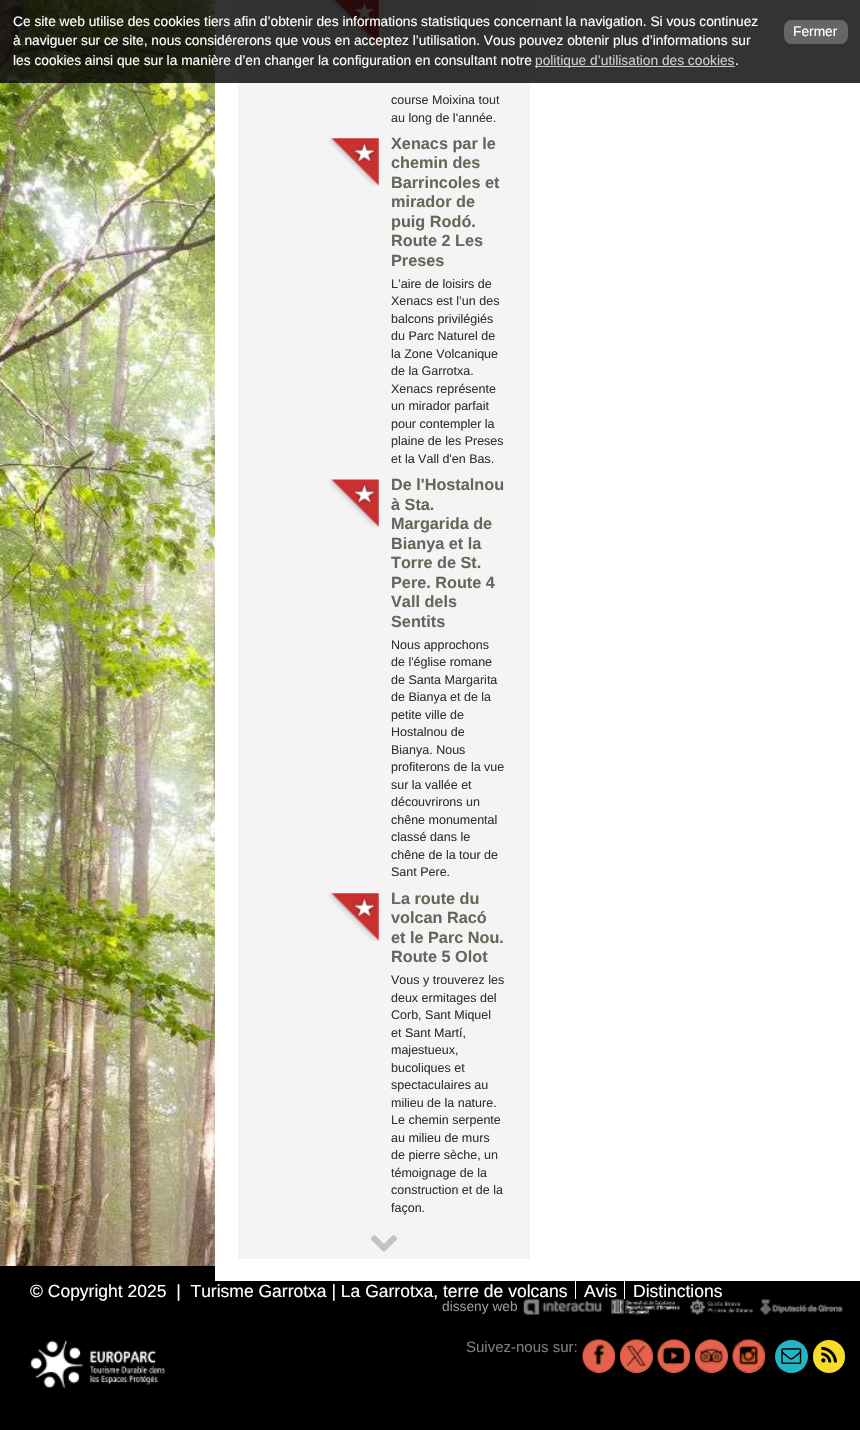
#include "include/core/SkBlurTypes.h"
#include "include/core/SkCanvas.h"
#include "include/core/SkData.h"
#include "include/core/SkFont.h"
#include "include/core/SkFontMgr.h"
#include "include/core/SkImage.h"
#include "include/core/SkMaskFilter.h"
#include "include/core/SkPaint.h"
#include "include/core/SkPathBuilder.h"
#include "include/core/SkTextBlob.h"
#include "include/effects/SkDashPathEffect.h"
#include "include/effects/SkGradientShader.h"
#include "include/utils/SkParsePath.h"

extern sk_sp<SkFontMgr> fontMgr;

static SkFont font(const char* family, int weight, float size, bool italic = false) {
    SkFontStyle style(weight, SkFontStyle::kNormal_Width,
        italic ? SkFontStyle::kItalic_Slant : SkFontStyle::kUpright_Slant);
    SkFont result(fontMgr->matchFamilyStyle(family, style), size);
    result.setSubpixel(true);
    return result;
}

static void drawLabel(SkCanvas* canvas, const char* s, float x, float y, const SkFont& font, SkColor color) {
    SkPaint ink(SkColor4f::FromColor(color));
    ink.setAntiAlias(true);
    canvas->drawString(s, x, y, font, ink);
}

static void fillRect(SkCanvas* canvas, float x, float y, float w, float h, SkColor color) {
    SkPaint ink(SkColor4f::FromColor(color));
    ink.setAntiAlias(true);
    canvas->drawRect(SkRect::MakeXYWH(x, y, w, h), ink);
}

static void fillRRect(SkCanvas* canvas, float x, float y, float w, float h, float radius, SkColor color) {
    SkPaint ink(SkColor4f::FromColor(color));
    ink.setAntiAlias(true);
    canvas->drawRoundRect(SkRect::MakeXYWH(x, y, w, h), radius, radius, ink);
}

static void drawPhoto(SkCanvas* canvas, const char* path, float x, float y, float w, float h) {
    auto image = SkImages::DeferredFromEncodedData(SkData::MakeFromFileName(path));
    canvas->drawImageRect(image, SkRect::MakeXYWH(x, y, w, h), SkSamplingOptions());
}

void draw(SkCanvas* canvas) {
    SkPaint paint;
    paint.setAntiAlias(true);
    canvas->clear(0xFFFFFFFF);
    drawPhoto(canvas, "assets/img1.png", 0, 0, 215, 1266);
    fillRect(canvas, 238, 0, 292, 1259, 0xFFF4F4F4);
    drawPhoto(canvas, "assets/img2.png", 329, 0, 50, 45);
    fillRect(canvas, 0, 0, 860, 83, 0xCC000000);
    SkFont font1 = font("Liberation Sans", 400, 13.75f);
    drawLabel(canvas, "Ce site web utilise des cookies tiers afin d’obtenir des informations statistiques concernant la navigation. Si vous continuez", 13, 26, font1, 0xFFFFFFFF);
    fillRRect(canvas, 784, 20, 64, 24, 8, 0xFF666666);
    drawLabel(canvas, "Fermer", 793, 36, font1, 0xFFFFFFFF);
    drawLabel(canvas, "à naviguer sur ce site, nous considérerons que vous en acceptez l’utilisation. Vous pouvez obtenir plus d’informations sur", 13, 45, font1, 0xFFFFFFFF);
    drawLabel(canvas, "les cookies ainsi que sur la manière d’en changer la configuration en consultant notre", 13, 65, font1, 0xFFFFFFFF);
    fillRect(canvas, 535, 66, 200, 1, 0xFFCCCCCC);
    drawLabel(canvas, "politique d’utilisation des cookies", 535, 65, font1, 0xFFCCCCCC);
    drawLabel(canvas, ".", 735, 65, font1, 0xFFFFFFFF);
    fillRect(canvas, 0, 1266, 860, 164, 0xFF000000);
    fillRect(canvas, 215, 1266, 645, 15, 0xFFFFFFFF);
    SkFont font2 = font("Liberation Sans", 400, 12.5f);
    drawLabel(canvas, "course Moixina tout", 391, 104, font2, 0xFF333333);
    drawLabel(canvas, "au long de l'année.", 391, 122, font2, 0xFF333333);
    drawPhoto(canvas, "assets/img3.png", 328, 138, 51, 48);
    SkFont font3 = font("Liberation Sans", 700, 16.25f);
    drawLabel(canvas, "Xenacs par le", 391, 149, font3, 0xFF69655A);
    drawLabel(canvas, "chemin des", 391, 168, font3, 0xFF69655A);
    drawLabel(canvas, "Barrincoles et", 391, 188, font3, 0xFF69655A);
    drawLabel(canvas, "mirador de", 391, 207, font3, 0xFF69655A);
    drawLabel(canvas, "puig Rodó.", 391, 227, font3, 0xFF69655A);
    drawLabel(canvas, "Route 2 Les", 391, 246, font3, 0xFF69655A);
    drawLabel(canvas, "Preses", 391, 266, font3, 0xFF69655A);
    drawLabel(canvas, "L’aire de loisirs de", 391, 288, font2, 0xFF333333);
    drawLabel(canvas, "Xenacs est l’un des", 391, 305, font2, 0xFF333333);
    drawLabel(canvas, "balcons privilégiés", 391, 323, font2, 0xFF333333);
    drawLabel(canvas, "du Parc Naturel de", 391, 340, font2, 0xFF333333);
    drawLabel(canvas, "la Zone Volcanique", 391, 358, font2, 0xFF333333);
    drawLabel(canvas, "de la Garrotxa.", 391, 375, font2, 0xFF333333);
    drawLabel(canvas, "Xenacs représente", 391, 393, font2, 0xFF333333);
    drawLabel(canvas, "un mirador parfait", 391, 410, font2, 0xFF333333);
    drawLabel(canvas, "pour contempler la", 391, 428, font2, 0xFF333333);
    drawLabel(canvas, "plaine de les Preses", 391, 445, font2, 0xFF333333);
    drawLabel(canvas, "et la Vall d'en Bas.", 391, 463, font2, 0xFF333333);
    drawPhoto(canvas, "assets/img4.png", 328, 479, 51, 49);
    drawLabel(canvas, "De l'Hostalnou", 391, 490, font3, 0xFF69655A);
    drawLabel(canvas, "à Sta.", 391, 510, font3, 0xFF69655A);
    drawLabel(canvas, "Margarida de", 391, 529, font3, 0xFF69655A);
    drawLabel(canvas, "Bianya et la", 391, 549, font3, 0xFF69655A);
    drawLabel(canvas, "Torre de St.", 391, 568, font3, 0xFF69655A);
    drawLabel(canvas, "Pere. Route 4", 391, 588, font3, 0xFF69655A);
    drawLabel(canvas, "Vall dels", 391, 607, font3, 0xFF69655A);
    drawLabel(canvas, "Sentits", 391, 627, font3, 0xFF69655A);
    drawLabel(canvas, "Nous approchons", 391, 649, font2, 0xFF333333);
    drawLabel(canvas, "de l'église romane", 391, 666, font2, 0xFF333333);
    drawLabel(canvas, "de Santa Margarita", 391, 684, font2, 0xFF333333);
    drawLabel(canvas, "de Bianya et de la", 391, 701, font2, 0xFF333333);
    drawLabel(canvas, "petite ville de", 391, 719, font2, 0xFF333333);
    drawLabel(canvas, "Hostalnou de", 391, 736, font2, 0xFF333333);
    drawLabel(canvas, "Bianya. Nous", 391, 754, font2, 0xFF333333);
    drawLabel(canvas, "profiterons de la vue", 391, 771, font2, 0xFF333333);
    drawLabel(canvas, "sur la vallée et", 391, 789, font2, 0xFF333333);
    drawLabel(canvas, "découvrirons un", 391, 806, font2, 0xFF333333);
    drawLabel(canvas, "chêne monumental", 391, 824, font2, 0xFF333333);
    drawLabel(canvas, "classé dans le", 391, 841, font2, 0xFF333333);
    drawLabel(canvas, "chêne de la tour de", 391, 859, font2, 0xFF333333);
    drawLabel(canvas, "Sant Pere.", 391, 876, font2, 0xFF333333);
    drawPhoto(canvas, "assets/img3.png", 328, 893, 51, 48);
    drawLabel(canvas, "La route du", 391, 904, font3, 0xFF69655A);
    drawLabel(canvas, "volcan Racó", 391, 923, font3, 0xFF69655A);
    drawLabel(canvas, "et le Parc Nou.", 391, 943, font3, 0xFF69655A);
    drawLabel(canvas, "Route 5 Olot", 391, 962, font3, 0xFF69655A);
    drawLabel(canvas, "Vous y trouverez les", 391, 984, font2, 0xFF333333);
    drawLabel(canvas, "deux ermitages del", 391, 1002, font2, 0xFF333333);
    drawLabel(canvas, "Corb, Sant Miquel", 391, 1019, font2, 0xFF333333);
    drawLabel(canvas, "et Sant Martí,", 391, 1037, font2, 0xFF333333);
    drawLabel(canvas, "majestueux,", 391, 1054, font2, 0xFF333333);
    drawLabel(canvas, "bucoliques et", 391, 1072, font2, 0xFF333333);
    drawLabel(canvas, "spectaculaires au", 391, 1089, font2, 0xFF333333);
    drawLabel(canvas, "milieu de la nature.", 391, 1107, font2, 0xFF333333);
    drawLabel(canvas, "Le chemin serpente", 391, 1124, font2, 0xFF333333);
    drawLabel(canvas, "au milieu de murs", 391, 1142, font2, 0xFF333333);
    drawLabel(canvas, "de pierre sèche, un", 391, 1159, font2, 0xFF333333);
    drawLabel(canvas, "témoignage de la", 391, 1177, font2, 0xFF333333);
    drawLabel(canvas, "construction et de la", 391, 1194, font2, 0xFF333333);
    drawLabel(canvas, "façon.", 391, 1212, font2, 0xFF333333);
    drawPhoto(canvas, "assets/img5.png", 371, 1235, 26, 17);
    SkFont font4 = font("Liberation Sans", 400, 17.5f);
    drawLabel(canvas, "© Copyright 2025  |  Turisme Garrotxa | La Garrotxa, terre de volcans", 30, 1297, font4, 0xFFFFFFFF);
    fillRect(canvas, 575, 1281, 1, 18, 0xFFFFFFFF);
    drawLabel(canvas, "Avis", 584, 1297, font4, 0xFFFFFFFF);
    fillRect(canvas, 624, 1281, 1, 18, 0xFFFFFFFF);
    drawLabel(canvas, "Distinctions", 633, 1297, font4, 0xFFFFFFFF);
    drawLabel(canvas, "disseny web", 442, 1311, font1, 0xFF999999);
    drawPhoto(canvas, "assets/img6.png", 523, 1299, 320, 16);
    drawPhoto(canvas, "assets/img7.png", 30, 1340, 135, 49);
    SkFont font5 = font("Liberation Sans", 400, 15);
    drawLabel(canvas, "Suivez-nous sur:", 466, 1352, font5, 0xFF7C7C7C);
    fillRRect(canvas, 583, 1340, 32, 33, 16, 0xFFE6624E);
    drawPhoto(canvas, "assets/img8.png", 582, 1339, 33, 33);
    paint.setColor(0xFFE6624E);
    canvas->drawCircle(636.5f, 1356.5f, 16.5f, paint);
    drawPhoto(canvas, "assets/img9.png", 620, 1339, 33, 33);
    fillRRect(canvas, 658, 1340, 32, 33, 16, 0xFFE6624E);
    drawPhoto(canvas, "assets/img10.png", 657, 1339, 33, 33);
    canvas->drawCircle(711.5f, 1356.5f, 16.5f, paint);
    drawPhoto(canvas, "assets/img11.png", 695, 1339, 33, 33);
    fillRRect(canvas, 733, 1340, 32, 33, 16, 0xFFE6624E);
    drawPhoto(canvas, "assets/img12.png", 732, 1339, 33, 33);
    paint.setColor(0xFF24B5C4);
    canvas->drawCircle(791.5f, 1356.5f, 16.5f, paint);
    drawPhoto(canvas, "assets/img13.png", 781, 1348, 21, 16);
    fillRRect(canvas, 813, 1340, 32, 33, 16, 0xFFF9DC29);
    drawPhoto(canvas, "assets/img14.png", 821, 1346, 16, 17);
}
